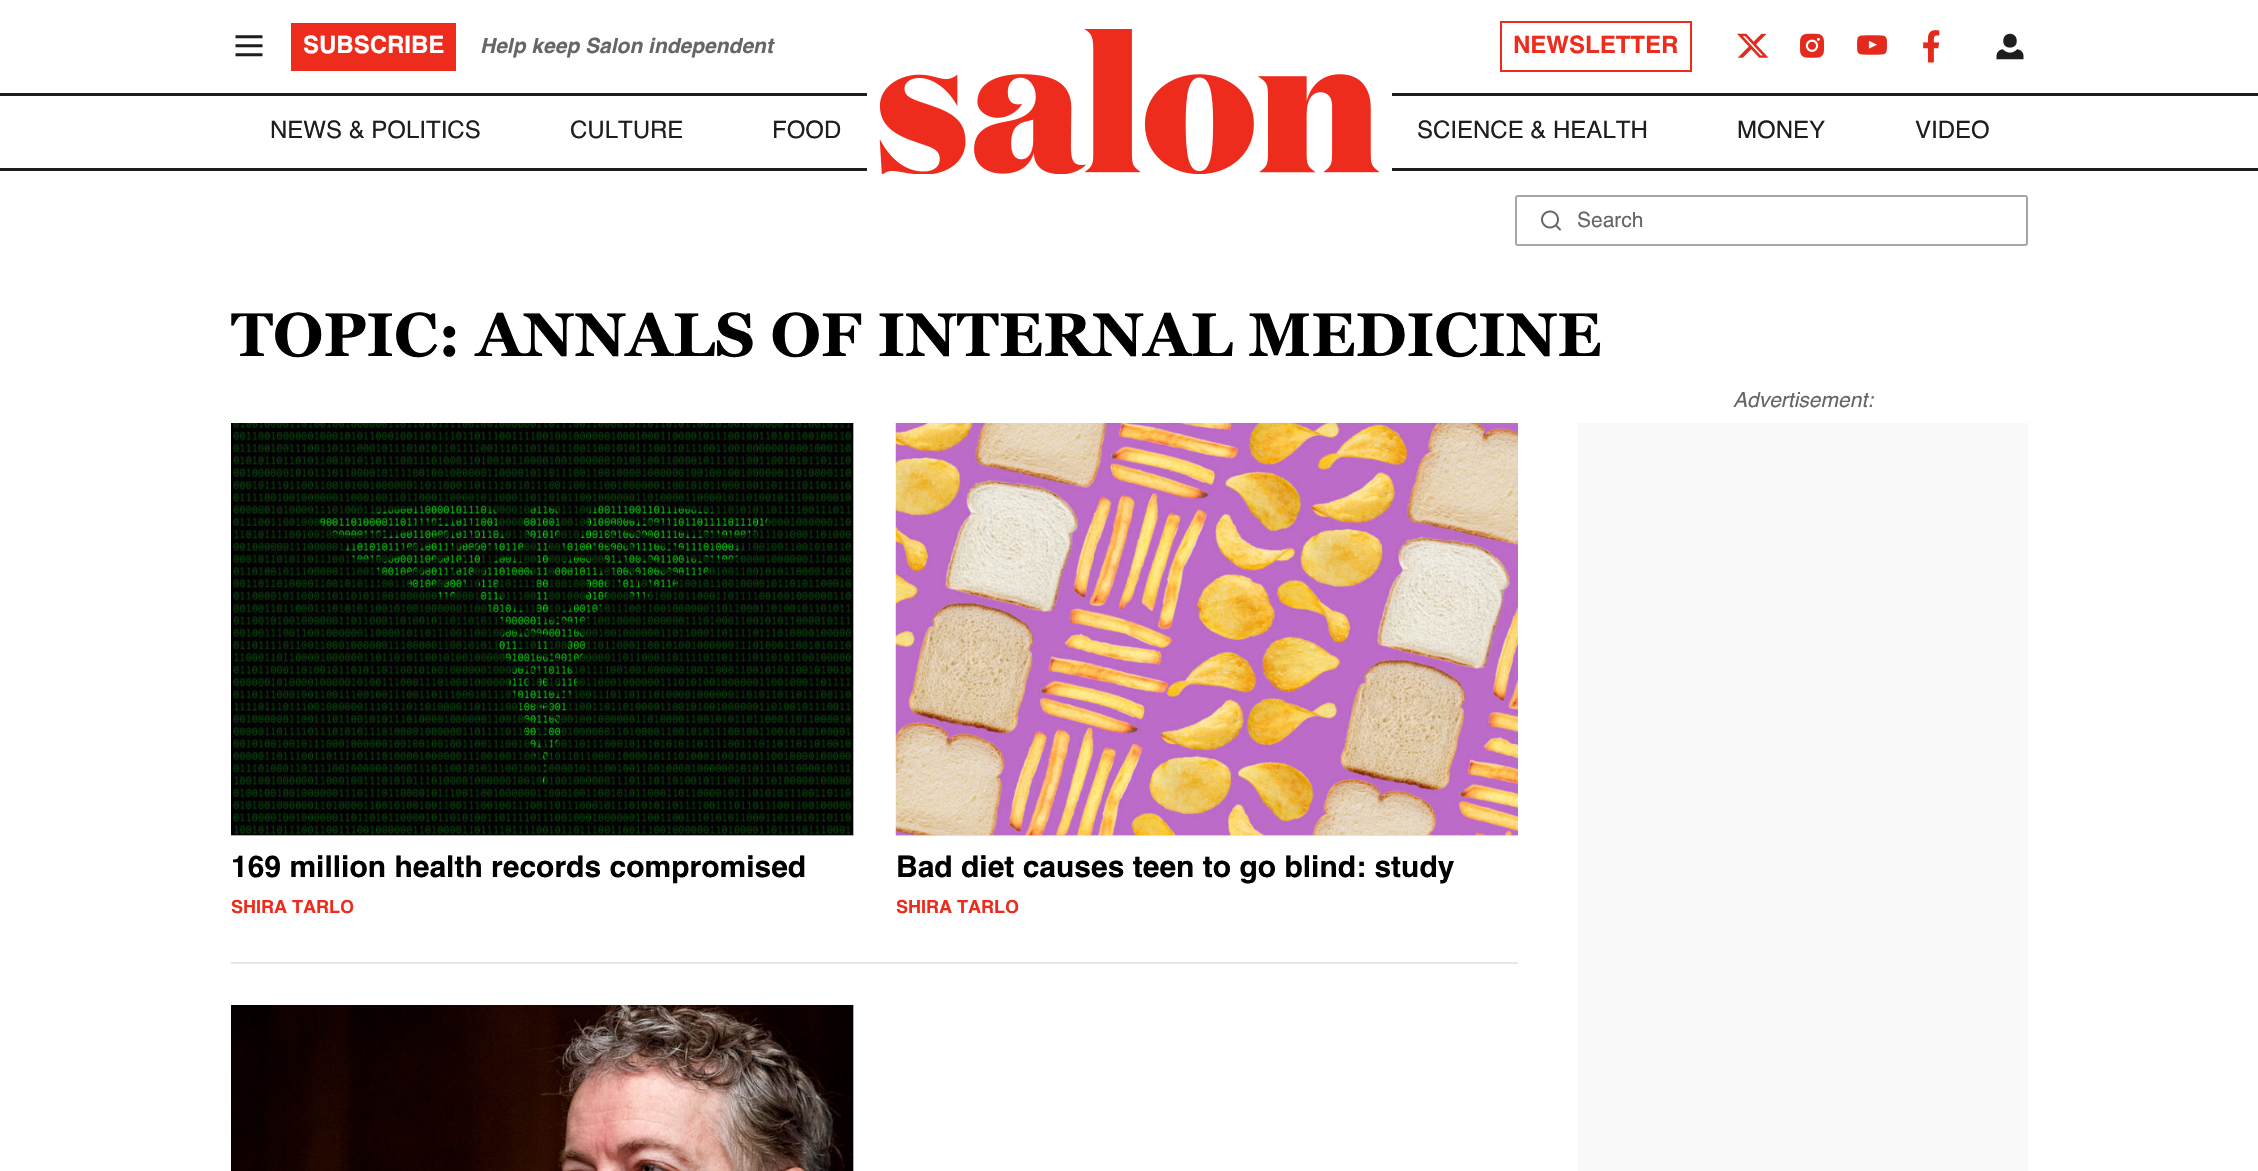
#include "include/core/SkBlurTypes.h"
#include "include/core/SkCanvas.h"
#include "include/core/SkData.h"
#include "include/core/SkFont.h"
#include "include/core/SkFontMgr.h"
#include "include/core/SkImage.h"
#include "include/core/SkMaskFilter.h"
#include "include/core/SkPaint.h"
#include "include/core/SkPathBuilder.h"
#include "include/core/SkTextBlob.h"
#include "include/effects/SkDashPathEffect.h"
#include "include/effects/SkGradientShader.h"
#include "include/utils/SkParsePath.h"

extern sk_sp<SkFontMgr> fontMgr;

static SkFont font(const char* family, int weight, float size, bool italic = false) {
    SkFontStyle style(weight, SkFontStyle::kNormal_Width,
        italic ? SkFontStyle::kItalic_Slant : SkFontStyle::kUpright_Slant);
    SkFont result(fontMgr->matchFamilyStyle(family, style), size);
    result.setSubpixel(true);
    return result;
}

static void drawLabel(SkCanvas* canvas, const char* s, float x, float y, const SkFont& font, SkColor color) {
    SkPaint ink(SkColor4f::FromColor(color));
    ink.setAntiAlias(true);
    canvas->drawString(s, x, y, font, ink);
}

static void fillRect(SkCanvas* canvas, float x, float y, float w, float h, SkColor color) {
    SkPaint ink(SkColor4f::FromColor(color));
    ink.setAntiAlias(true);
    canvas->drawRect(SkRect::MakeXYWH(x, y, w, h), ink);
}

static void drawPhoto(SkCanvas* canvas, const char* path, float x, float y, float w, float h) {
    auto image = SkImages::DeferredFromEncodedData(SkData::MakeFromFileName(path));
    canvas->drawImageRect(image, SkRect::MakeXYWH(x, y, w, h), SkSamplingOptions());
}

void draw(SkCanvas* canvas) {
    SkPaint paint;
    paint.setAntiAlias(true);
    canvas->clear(0xFFFFFFFF);
    drawPhoto(canvas, "assets/img1.png", 235, 35, 28, 22);
    fillRect(canvas, 291, 23, 165, 48, 0xFFED2C1D);
    SkFont font1 = font("Helvetica", 700, 24);
    drawLabel(canvas, "SUBSCRIBE", 303, 53, font1, 0xFFFFFFFF);
    SkFont font2 = font("Helvetica", 700, 21, true);
    drawLabel(canvas, "Help keep Salon independent", 480, 53, font2, 0xFF666666);
    paint.setStroke(true);
    paint.setStrokeWidth(2);
    paint.setColor(0xFFED2C1D);
    canvas->drawRect(SkRect::MakeXYWH(1501, 22, 190, 49), paint);
    drawLabel(canvas, "NEWSLETTER", 1513, 53, font1, 0xFFED2C1D);
    drawPhoto(canvas, "assets/img2.png", 1737, 33, 32, 25);
    drawPhoto(canvas, "assets/img3.png", 1800, 33, 24, 25);
    drawPhoto(canvas, "assets/img4.png", 1857, 35, 30, 20);
    drawPhoto(canvas, "assets/img5.png", 1923, 30, 17, 33);
    drawPhoto(canvas, "assets/img6.png", 1996, 33, 28, 27);
    fillRect(canvas, 0, 93, 2258, 3, 0xFF1E1E1E);
    fillRect(canvas, 0, 168, 2258, 3, 0xFF1E1E1E);
    SkFont font3 = font("Helvetica", 400, 24);
    drawLabel(canvas, "NEWS & POLITICS", 270, 138, font3, 0xFF1E1E1E);
    drawLabel(canvas, "CULTURE", 570, 138, font3, 0xFF1E1E1E);
    drawLabel(canvas, "FOOD", 772, 138, font3, 0xFF1E1E1E);
    fillRect(canvas, 867, 93, 525, 78, 0xFFFFFFFF);
    drawPhoto(canvas, "assets/img7.png", 879, 29, 501, 145);
    drawLabel(canvas, "SCIENCE & HEALTH", 1417, 138, font3, 0xFF1E1E1E);
    drawLabel(canvas, "MONEY", 1737, 138, font3, 0xFF1E1E1E);
    drawLabel(canvas, "VIDEO", 1915, 138, font3, 0xFF1E1E1E);
    paint.setColor(0xFFA6A6A6);
    canvas->drawRoundRect(SkRect::MakeXYWH(1516, 196, 511, 49), 2, 2, paint);
    drawPhoto(canvas, "assets/img8.png", 1541, 210, 21, 21);
    SkFont font4 = font("Helvetica", 400, 21);
    drawLabel(canvas, "Search", 1577, 227, font4, 0xFF666666);
    SkFont font5 = font("Georgia", 700, 61.5f);
    drawLabel(canvas, "TOPIC: ANNALS OF INTERNAL MEDICINE", 231, 356, font5, 0xFF000000);
    SkFont font6 = font("Helvetica", 400, 21, true);
    drawLabel(canvas, "Advertisement:", 1733, 407, font6, 0xFF666666);
    fillRect(canvas, 1578, 423, 450, 748, 0xFFF9F9F9);
    fillRect(canvas, 231, 423, 623, 413, 0xFFE6E6E6);
    drawPhoto(canvas, "assets/img9.png", 231, 423, 623, 413);
    SkFont font7 = font("Helvetica", 700, 30);
    drawLabel(canvas, "169 million health records compromised", 231, 877, font7, 0xFF000000);
    SkFont font8 = font("Helvetica", 700, 18);
    drawLabel(canvas, "SHIRA TARLO", 231, 913, font8, 0xFFED2C1D);
    fillRect(canvas, 896, 835, 622, 1, 0xFFE6E6E6);
    drawPhoto(canvas, "assets/img10.png", 895, 423, 623, 413);
    drawLabel(canvas, "Bad diet causes teen to go blind: study", 896, 877, font7, 0xFF000000);
    drawLabel(canvas, "SHIRA TARLO", 896, 913, font8, 0xFFED2C1D);
    fillRect(canvas, 231, 962, 1287, 2, 0xFFE5E7EB);
    fillRect(canvas, 853, 1005, 1, 166, 0xFFE6E6E6);
    drawPhoto(canvas, "assets/img11.png", 231, 1005, 623, 166);
}
